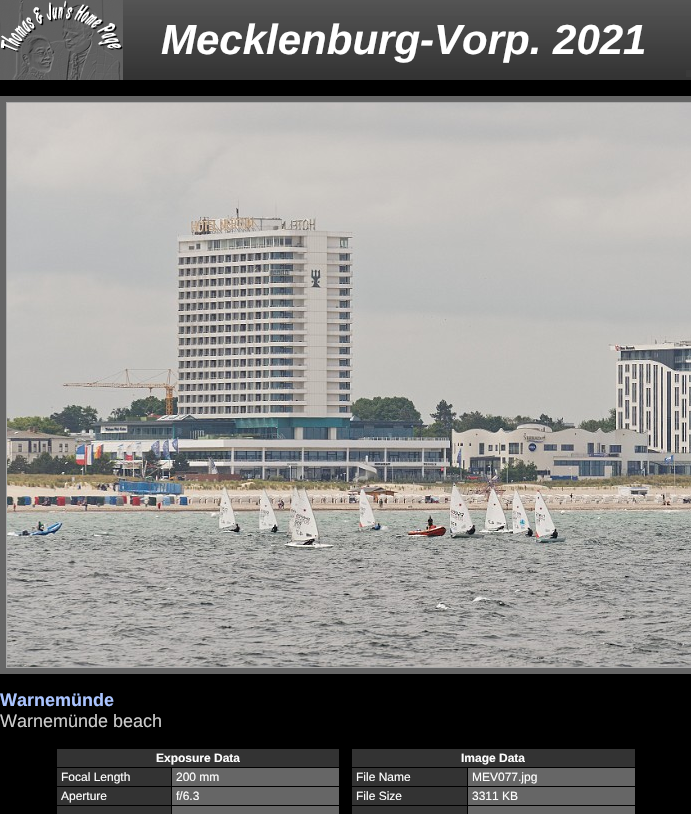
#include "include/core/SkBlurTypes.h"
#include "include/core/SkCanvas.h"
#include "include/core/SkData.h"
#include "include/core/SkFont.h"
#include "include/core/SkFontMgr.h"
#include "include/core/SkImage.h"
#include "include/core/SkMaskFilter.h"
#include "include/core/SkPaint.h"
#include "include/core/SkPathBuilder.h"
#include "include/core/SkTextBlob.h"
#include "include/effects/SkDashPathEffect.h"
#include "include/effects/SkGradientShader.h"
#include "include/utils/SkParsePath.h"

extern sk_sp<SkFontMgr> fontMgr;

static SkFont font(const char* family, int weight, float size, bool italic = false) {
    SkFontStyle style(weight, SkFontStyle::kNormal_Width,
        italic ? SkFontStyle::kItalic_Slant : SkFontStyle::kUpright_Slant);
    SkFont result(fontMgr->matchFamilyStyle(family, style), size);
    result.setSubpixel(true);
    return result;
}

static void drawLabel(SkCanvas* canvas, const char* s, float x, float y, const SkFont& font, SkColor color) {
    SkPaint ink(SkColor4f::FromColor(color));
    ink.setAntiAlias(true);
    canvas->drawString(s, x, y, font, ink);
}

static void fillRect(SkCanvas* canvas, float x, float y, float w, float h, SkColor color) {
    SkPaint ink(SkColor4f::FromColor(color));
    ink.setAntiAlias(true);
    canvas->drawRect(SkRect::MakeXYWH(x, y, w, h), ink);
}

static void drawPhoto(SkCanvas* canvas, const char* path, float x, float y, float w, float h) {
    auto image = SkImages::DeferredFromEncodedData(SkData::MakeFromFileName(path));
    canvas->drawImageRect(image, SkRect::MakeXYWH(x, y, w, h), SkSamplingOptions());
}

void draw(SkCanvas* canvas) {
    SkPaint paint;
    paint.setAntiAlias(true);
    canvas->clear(0xFF000000);
    drawPhoto(canvas, "assets/img1.png", 0, 0, 123, 80);
    drawPhoto(canvas, "assets/img2.png", 123, 0, 561, 80);
    SkFont font1 = font("Liberation Sans", 700, 42, true);
    drawLabel(canvas, "Mecklenburg-Vorp. 2021", 161, 54, font1, 0xFFFFFFFF);
    drawPhoto(canvas, "assets/img3.png", 684, 0, 7, 80);
    fillRect(canvas, 686, 70, 5, 7, 0xFF3A3A3A);
    fillRect(canvas, 0, 96, 691, 578, 0xFF666666);
    paint.setStroke(true);
    paint.setStrokeWidth(1);
    paint.setColor(0xFFAAAAAA);
    canvas->drawRect(SkRect::MakeXYWH(6.5f, 102.5f, 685, 565), paint);
    drawPhoto(canvas, "assets/img4.png", 7, 103, 684, 564);
    SkFont font2 = font("Liberation Sans", 700, 18);
    drawLabel(canvas, "Warnemünde", 0, 706, font2, 0xFFAAC4FF);
    SkFont font3 = font("Liberation Sans", 400, 18);
    drawLabel(canvas, "Warnemünde beach", 0, 727, font3, 0xFFCCCCCC);
    fillRect(canvas, 57, 749, 282, 18, 0xFF333333);
    SkFont font4 = font("Liberation Sans", 700, 12);
    drawLabel(canvas, "Exposure Data", 156, 762, font4, 0xFFFFFFFF);
    fillRect(canvas, 352, 749, 283, 18, 0xFF333333);
    drawLabel(canvas, "Image Data", 461, 762, font4, 0xFFFFFFFF);
    fillRect(canvas, 57, 768, 114, 18, 0xFF333333);
    SkFont font5 = font("Liberation Sans", 400, 12);
    drawLabel(canvas, "Focal Length", 61, 781, font5, 0xFFFFFFFF);
    fillRect(canvas, 172, 768, 167, 18, 0xFF666666);
    drawLabel(canvas, "200 mm", 176, 781, font5, 0xFFFFFFFF);
    fillRect(canvas, 352, 768, 115, 18, 0xFF333333);
    drawLabel(canvas, "File Name", 356, 781, font5, 0xFFFFFFFF);
    fillRect(canvas, 468, 768, 167, 18, 0xFF666666);
    drawLabel(canvas, "MEV077.jpg", 472, 781, font5, 0xFFFFFFFF);
    fillRect(canvas, 57, 787, 114, 18, 0xFF333333);
    drawLabel(canvas, "Aperture", 61, 800, font5, 0xFFFFFFFF);
    fillRect(canvas, 172, 787, 167, 18, 0xFF666666);
    drawLabel(canvas, "f/6.3", 176, 800, font5, 0xFFFFFFFF);
    fillRect(canvas, 352, 787, 115, 18, 0xFF333333);
    drawLabel(canvas, "File Size", 356, 800, font5, 0xFFFFFFFF);
    fillRect(canvas, 468, 787, 167, 18, 0xFF666666);
    drawLabel(canvas, "3311 KB", 472, 800, font5, 0xFFFFFFFF);
    fillRect(canvas, 57, 806, 114, 8, 0xFF333333);
    fillRect(canvas, 172, 806, 167, 8, 0xFF666666);
    fillRect(canvas, 352, 806, 115, 8, 0xFF333333);
    fillRect(canvas, 468, 806, 167, 8, 0xFF666666);
}
